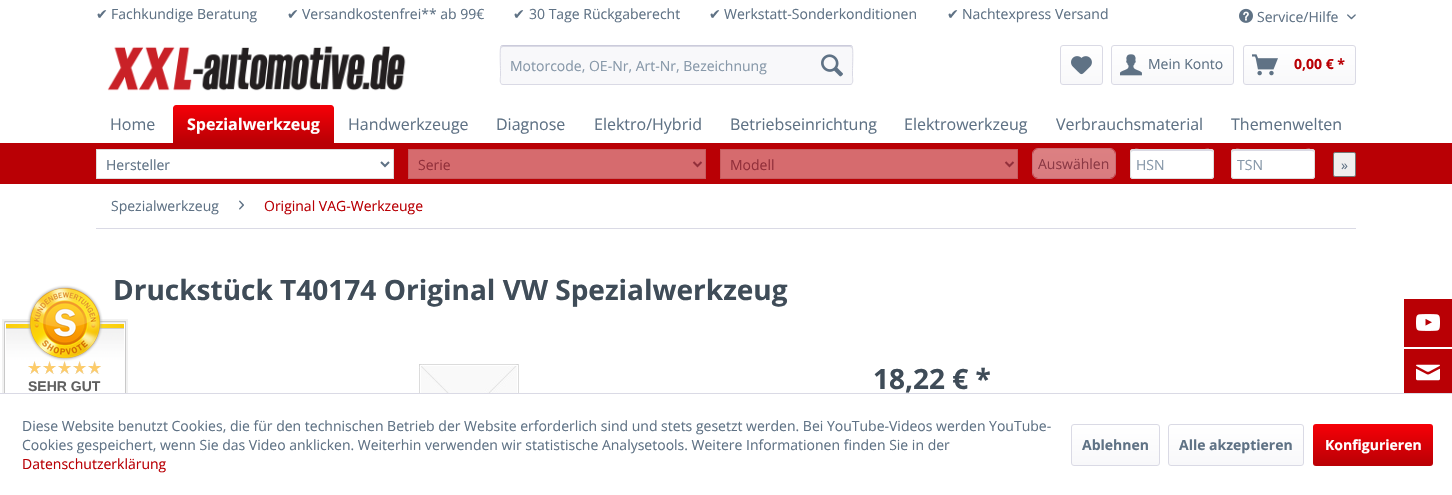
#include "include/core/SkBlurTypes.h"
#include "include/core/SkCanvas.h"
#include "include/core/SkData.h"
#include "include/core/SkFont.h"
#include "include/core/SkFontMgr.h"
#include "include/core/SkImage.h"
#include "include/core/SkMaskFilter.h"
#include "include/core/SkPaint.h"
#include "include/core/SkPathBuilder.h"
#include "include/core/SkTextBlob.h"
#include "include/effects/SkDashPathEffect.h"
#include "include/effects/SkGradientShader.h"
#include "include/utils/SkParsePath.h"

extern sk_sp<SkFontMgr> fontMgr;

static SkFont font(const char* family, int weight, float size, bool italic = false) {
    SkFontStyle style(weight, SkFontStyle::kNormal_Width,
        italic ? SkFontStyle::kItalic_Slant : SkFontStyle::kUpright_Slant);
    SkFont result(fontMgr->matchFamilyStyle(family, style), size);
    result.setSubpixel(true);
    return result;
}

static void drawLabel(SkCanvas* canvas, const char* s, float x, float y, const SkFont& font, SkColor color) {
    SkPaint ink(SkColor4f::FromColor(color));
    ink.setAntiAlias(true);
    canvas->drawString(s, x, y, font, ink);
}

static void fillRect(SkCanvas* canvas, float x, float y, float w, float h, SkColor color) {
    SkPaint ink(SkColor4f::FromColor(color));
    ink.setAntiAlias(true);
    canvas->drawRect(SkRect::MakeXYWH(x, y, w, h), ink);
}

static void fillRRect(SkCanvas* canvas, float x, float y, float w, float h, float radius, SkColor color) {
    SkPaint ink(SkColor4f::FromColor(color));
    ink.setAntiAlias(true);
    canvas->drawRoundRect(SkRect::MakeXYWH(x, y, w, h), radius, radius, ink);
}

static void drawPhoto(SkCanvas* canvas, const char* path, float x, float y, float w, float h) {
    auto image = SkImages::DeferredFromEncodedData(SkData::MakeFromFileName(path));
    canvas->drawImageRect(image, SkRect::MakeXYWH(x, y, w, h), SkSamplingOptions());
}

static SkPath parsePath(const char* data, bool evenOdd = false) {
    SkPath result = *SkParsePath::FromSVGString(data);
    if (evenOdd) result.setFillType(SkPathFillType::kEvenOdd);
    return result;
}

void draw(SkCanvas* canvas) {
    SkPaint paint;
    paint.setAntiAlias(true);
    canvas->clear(0xFFFFFFFF);
    SkFont font1 = font("Open Sans", 700, 28);
    drawLabel(canvas, "Druckstück T40174 Original VW Spezialwerkzeug", 113, 300, font1, 0xFF3F4C58);
    drawPhoto(canvas, "assets/img1.png", 2, 285, 126, 108);
    drawPhoto(canvas, "assets/img2.png", 28, 361, 73, 13);
    SkFont font2 = font("Liberation Sans", 700, 14);
    drawLabel(canvas, "SEHR GUT", 28, 391, font2, 0xFF606060);
    SkFont font3 = font("DejaVu Sans", 400, 14);
    drawLabel(canvas, "✔", 96, 19, font3, 0xFF5F7285);
    SkFont font4 = font("Open Sans", 400, 14);
    drawLabel(canvas, "Fachkundige Beratung", 111, 19, font4, 0xFF5F7285);
    drawLabel(canvas, "✔", 287, 19, font3, 0xFF5F7285);
    drawLabel(canvas, "Versandkostenfrei** ab 99€", 302, 19, font4, 0xFF5F7285);
    drawLabel(canvas, "✔", 513, 19, font3, 0xFF5F7285);
    drawLabel(canvas, "30 Tage Rückgaberecht", 529, 19, font4, 0xFF5F7285);
    drawLabel(canvas, "✔", 709, 19, font3, 0xFF5F7285);
    drawLabel(canvas, "Werkstatt-Sonderkonditionen", 724, 19, font4, 0xFF5F7285);
    drawLabel(canvas, "✔", 947, 19, font3, 0xFF5F7285);
    drawLabel(canvas, "Nachtexpress Versand", 962, 19, font4, 0xFF5F7285);
    drawPhoto(canvas, "assets/img3.png", 1239, 8, 14, 15);
    drawLabel(canvas, "Service/Hilfe", 1257, 22, font4, 0xFF5F7285);
    drawPhoto(canvas, "assets/img4.png", 1347, 14, 9, 6);
    drawPhoto(canvas, "assets/img5.png", 107, 46, 299, 45);
    fillRRect(canvas, 500, 45, 353, 40, 3, 0xFFF8F8FA);
    paint.setColor(0xFFDADAE5);
    canvas->drawPath(parsePath("M503 47H850C851 47 852 48 852 49C852 48 852 46 850 46H503C501 46 501 48 501 49C501 48 502 47 503 47Z"), paint);
    paint.setStroke(true);
    paint.setStrokeWidth(1);
    paint.setColor(0xFFCBCBDB);
    canvas->drawPath(parsePath("M501 46L503 45.5H850L852 46"), paint);
    paint.setColor(0xFFDADAE5);
    canvas->drawPath(parsePath("M852 46C853.5 48 852.5 67 852.5 70.5V76.5C852.5 78 854 84.5 850 84.5H503C499 84.5 500.5 78 500.5 76.5V70.5C500.5 67 499.5 48 501 46"), paint);
    drawLabel(canvas, "Motorcode, OE-Nr, Art-Nr, Bezeichnung", 510, 71, font4, 0xFF8798A9);
    drawPhoto(canvas, "assets/img6.png", 821, 54, 22, 23);
    paint.setStroke(false);
    {
        const SkColor colors[] = {0xFFFFFFFF, 0xFFF8F8FA};
        const float stops[] = {0, 1};
        const SkPoint ends[] = {{1082, 46}, {1082, 84}};
        paint.setShader(SkGradientShader::MakeLinear(ends, colors, stops, 2, SkTileMode::kClamp));
        paint.setAlpha(255);
    }
    canvas->drawRoundRect(SkRect::MakeXYWH(1061, 46, 41, 38), 2, 2, paint);
    paint.setStroke(true);
    paint.setShader(nullptr);
    paint.setColor(0xFFDADAE5);
    canvas->drawRoundRect(SkRect::MakeXYWH(1060.5f, 45.5f, 42, 39), 2.5f, 2.5f, paint);
    drawPhoto(canvas, "assets/img7.png", 1071, 56, 21, 19);
    paint.setStroke(false);
    {
        const SkColor colors[] = {0xFFFFFFFF, 0xFFF8F8FA};
        const float stops[] = {0, 1};
        const SkPoint ends[] = {{1173, 46}, {1173, 84}};
        paint.setShader(SkGradientShader::MakeLinear(ends, colors, stops, 2, SkTileMode::kClamp));
        paint.setAlpha(255);
    }
    canvas->drawRoundRect(SkRect::MakeXYWH(1112, 46, 121, 38), 2, 2, paint);
    paint.setStroke(true);
    paint.setShader(nullptr);
    paint.setColor(0xFFDADAE5);
    canvas->drawRoundRect(SkRect::MakeXYWH(1111.5f, 45.5f, 122, 39), 2.5f, 2.5f, paint);
    drawPhoto(canvas, "assets/img8.png", 1120, 54, 22, 22);
    drawLabel(canvas, "Mein Konto", 1148, 69, font4, 0xFF5F7285);
    paint.setStroke(false);
    {
        const SkColor colors[] = {0xFFFFFFFF, 0xFFF8F8FA};
        const float stops[] = {0, 1};
        const SkPoint ends[] = {{1300, 46}, {1300, 84}};
        paint.setShader(SkGradientShader::MakeLinear(ends, colors, stops, 2, SkTileMode::kClamp));
        paint.setAlpha(255);
    }
    canvas->drawRoundRect(SkRect::MakeXYWH(1244, 46, 111, 38), 2, 2, paint);
    paint.setStroke(true);
    paint.setShader(nullptr);
    paint.setColor(0xFFDADAE5);
    canvas->drawRoundRect(SkRect::MakeXYWH(1243.5f, 45.5f, 112, 39), 2.5f, 2.5f, paint);
    drawPhoto(canvas, "assets/img9.png", 1252, 54, 26, 22);
    SkFont font5 = font("Open Sans", 700, 14);
    drawLabel(canvas, "0,00 € *", 1294, 69, font5, 0xFFB90005);
    SkFont font6 = font("Open Sans", 400, 16);
    drawLabel(canvas, "Home", 110, 130, font6, 0xFF5F7285);
    paint.setStroke(false);
    {
        const SkColor colors[] = {0xFFF60007, 0xFFB90005};
        const float stops[] = {0, 1};
        const SkPoint ends[] = {{254, 105}, {254, 143}};
        paint.setShader(SkGradientShader::MakeLinear(ends, colors, stops, 2, SkTileMode::kClamp));
        paint.setAlpha(255);
    }
    canvas->drawPath(parsePath("M176 105H331C332.5 105 334 106.5 334 108V143H173V108C173 106.5 174.5 105 176 105Z"), paint);
    SkFont font7 = font("Open Sans", 700, 16);
    drawLabel(canvas, "Spezialwerkzeug", 187, 130, font7, 0xFFFFFFFF);
    drawLabel(canvas, "Handwerkzeuge", 348, 130, font6, 0xFF5F7285);
    drawLabel(canvas, "Diagnose", 496, 130, font6, 0xFF5F7285);
    drawLabel(canvas, "Elektro/Hybrid", 594, 130, font6, 0xFF5F7285);
    drawLabel(canvas, "Betriebseinrichtung", 730, 130, font6, 0xFF5F7285);
    drawLabel(canvas, "Elektrowerkzeug", 904, 130, font6, 0xFF5F7285);
    drawLabel(canvas, "Verbrauchsmaterial", 1056, 130, font6, 0xFF5F7285);
    drawLabel(canvas, "Themenwelten", 1231, 130, font6, 0xFF5F7285);
    fillRect(canvas, 0, 143, 1452, 41, 0xFFB90005);
    paint.setShader(nullptr);
    paint.setColor(0xFFFFFFFF);
    canvas->drawRect(SkRect::MakeXYWH(96.5f, 149.5f, 297, 29), paint);
    paint.setStroke(true);
    paint.setColor(0xFFDDDDDD);
    canvas->drawRect(SkRect::MakeXYWH(96.5f, 149.5f, 297, 29), paint);
    paint.setStrokeWidth(2);
    paint.setColor(0xFF5F7285);
    canvas->drawPath(parsePath("M381 162L385 166L389 162"), paint);
    drawLabel(canvas, "Hersteller", 106, 170, font4, 0xFF5F7285);
    paint.setStroke(false);
    paint.setColor(0xFFD66B6E);
    canvas->drawRect(SkRect::MakeXYWH(408.5f, 149.5f, 297, 29), paint);
    paint.setStroke(true);
    paint.setStrokeWidth(1);
    paint.setColor(0xFFC85D60);
    canvas->drawRect(SkRect::MakeXYWH(408.5f, 149.5f, 297, 29), paint);
    paint.setStrokeWidth(2);
    paint.setColor(0xFF93303B);
    canvas->drawPath(parsePath("M693.5 162L697.5 166L701.5 162"), paint);
    drawLabel(canvas, "Serie", 418, 170, font4, 0xFF93303B);
    paint.setStroke(false);
    paint.setColor(0xFFD66B6E);
    canvas->drawRect(SkRect::MakeXYWH(720.5f, 149.5f, 297, 29), paint);
    paint.setStroke(true);
    paint.setStrokeWidth(1);
    paint.setColor(0xFFC85D60);
    canvas->drawRect(SkRect::MakeXYWH(720.5f, 149.5f, 297, 29), paint);
    paint.setStrokeWidth(2);
    paint.setColor(0xFF93303B);
    canvas->drawPath(parsePath("M1005.5 162L1009.5 166L1013.5 162"), paint);
    drawLabel(canvas, "Modell", 730, 170, font4, 0xFF93303B);
    paint.setStroke(false);
    {
        const SkColor colors[] = {0xFFDC8082, 0xFFD97C80};
        const float stops[] = {0, 1};
        const SkPoint ends[] = {{1074, 149}, {1074, 178}};
        paint.setShader(SkGradientShader::MakeLinear(ends, colors, stops, 2, SkTileMode::kClamp));
        paint.setAlpha(255);
    }
    canvas->drawRoundRect(SkRect::MakeXYWH(1033, 149, 82, 29), 5, 5, paint);
    paint.setStroke(true);
    paint.setStrokeWidth(1);
    paint.setShader(nullptr);
    paint.setColor(0xFFCA6D75);
    canvas->drawRoundRect(SkRect::MakeXYWH(1032.5f, 148.5f, 83, 30), 5.5f, 5.5f, paint);
    drawLabel(canvas, "Auswählen", 1038, 169, font4, 0xFF8C3945);
    fillRRect(canvas, 1130, 149, 84, 30, 3, 0xFFFFFFFF);
    paint.setStroke(false);
    paint.setColor(0xFFDADAE5);
    canvas->drawPath(parsePath("M1133 151H1211C1212 151 1213 152 1213 153C1213 146 1201 150 1198 150H1146C1143 150 1131 146 1131 153C1131 152 1132 151 1133 151Z"), paint);
    paint.setStroke(true);
    paint.setColor(0xFFDDDDDD);
    canvas->drawRoundRect(SkRect::MakeXYWH(1130.5f, 149.5f, 83, 29), 2.5f, 2.5f, paint);
    drawLabel(canvas, "HSN", 1136, 170, font4, 0xFF8798A9);
    fillRRect(canvas, 1231, 149, 84, 30, 3, 0xFFFFFFFF);
    paint.setStroke(false);
    paint.setColor(0xFFDADAE5);
    canvas->drawPath(parsePath("M1234 151H1312C1313 151 1314 152 1314 153C1314 146 1302 150 1299 150H1247C1244 150 1232 146 1232 153C1232 152 1233 151 1234 151Z"), paint);
    paint.setStroke(true);
    paint.setColor(0xFFDDDDDD);
    canvas->drawRoundRect(SkRect::MakeXYWH(1231.5f, 149.5f, 83, 29), 2.5f, 2.5f, paint);
    drawLabel(canvas, "TSN", 1237, 170, font4, 0xFF8798A9);
    paint.setStroke(false);
    paint.setColor(0xFFEFEFEF);
    canvas->drawRoundRect(SkRect::MakeXYWH(1333.5f, 152.5f, 22, 24), 1.5f, 1.5f, paint);
    paint.setStroke(true);
    paint.setColor(0xFF767676);
    canvas->drawRoundRect(SkRect::MakeXYWH(1333.5f, 152.5f, 22, 24), 1.5f, 1.5f, paint);
    drawLabel(canvas, "»", 1341, 170, font4, 0xFF5F7285);
    fillRect(canvas, 96, 228, 1260, 1, 0xFFDADAE5);
    drawLabel(canvas, "Spezialwerkzeug", 111, 211, font4, 0xFF5F7285);
    drawPhoto(canvas, "assets/img10.png", 239, 200, 5, 10);
    drawLabel(canvas, "Original VAG-Werkzeuge", 264, 211, font4, 0xFFB90005);
    drawPhoto(canvas, "assets/img11.png", 419, 364, 100, 29);
    drawLabel(canvas, "18,22 € *", 873, 389, font1, 0xFF3F4C58);
    fillRect(canvas, 1404, 299, 48, 48, 0xFFB90005);
    drawPhoto(canvas, "assets/img12.png", 1416, 314, 24, 17);
    fillRect(canvas, 1404, 349, 48, 44, 0xFFB90005);
    drawPhoto(canvas, "assets/img13.png", 1416, 364, 24, 17);
    fillRect(canvas, 0, 393, 1452, 1, 0xFFDADAE5);
    drawLabel(canvas, "Diese Website benutzt Cookies, die für den technischen Betrieb der Website erforderlich sind und stets gesetzt werden. Bei YouTube-Videos werden YouTube-", 22, 431, font4, 0xFF5F7285);
    drawLabel(canvas, "Cookies gespeichert, wenn Sie das Video anklicken. Weiterhin verwenden wir statistische Analysetools. Weitere Informationen finden Sie in der", 22, 450, font4, 0xFF5F7285);
    drawLabel(canvas, "Datenschutzerklärung", 22, 469, font4, 0xFFB90005);
    paint.setStroke(false);
    {
        const SkColor colors[] = {0xFFFFFFFF, 0xFFF8F8FA};
        const float stops[] = {0, 1};
        const SkPoint ends[] = {{1116, 425}, {1116, 465}};
        paint.setShader(SkGradientShader::MakeLinear(ends, colors, stops, 2, SkTileMode::kClamp));
        paint.setAlpha(255);
    }
    canvas->drawRoundRect(SkRect::MakeXYWH(1072, 425, 87, 40), 2, 2, paint);
    paint.setStroke(true);
    paint.setShader(nullptr);
    paint.setColor(0xFFDADAE5);
    canvas->drawRoundRect(SkRect::MakeXYWH(1071.5f, 424.5f, 88, 41), 2.5f, 2.5f, paint);
    drawLabel(canvas, "Ablehnen", 1082, 450, font5, 0xFF5F7285);
    paint.setStroke(false);
    {
        const SkColor colors[] = {0xFFFFFFFF, 0xFFF8F8FA};
        const float stops[] = {0, 1};
        const SkPoint ends[] = {{1236, 425}, {1236, 465}};
        paint.setShader(SkGradientShader::MakeLinear(ends, colors, stops, 2, SkTileMode::kClamp));
        paint.setAlpha(255);
    }
    canvas->drawRoundRect(SkRect::MakeXYWH(1169, 425, 134, 40), 2, 2, paint);
    paint.setStroke(true);
    paint.setShader(nullptr);
    paint.setColor(0xFFDADAE5);
    canvas->drawRoundRect(SkRect::MakeXYWH(1168.5f, 424.5f, 135, 41), 2.5f, 2.5f, paint);
    drawLabel(canvas, "Alle akzeptieren", 1179, 450, font5, 0xFF5F7285);
    paint.setStroke(false);
    {
        const SkColor colors[] = {0xFFF60007, 0xFFB90005};
        const float stops[] = {0, 1};
        const SkPoint ends[] = {{1373, 424}, {1373, 466}};
        paint.setShader(SkGradientShader::MakeLinear(ends, colors, stops, 2, SkTileMode::kClamp));
        paint.setAlpha(255);
    }
    canvas->drawRoundRect(SkRect::MakeXYWH(1313, 424, 120, 42), 3, 3, paint);
    drawLabel(canvas, "Konfigurieren", 1325, 450, font5, 0xFFFFFFFF);
}
